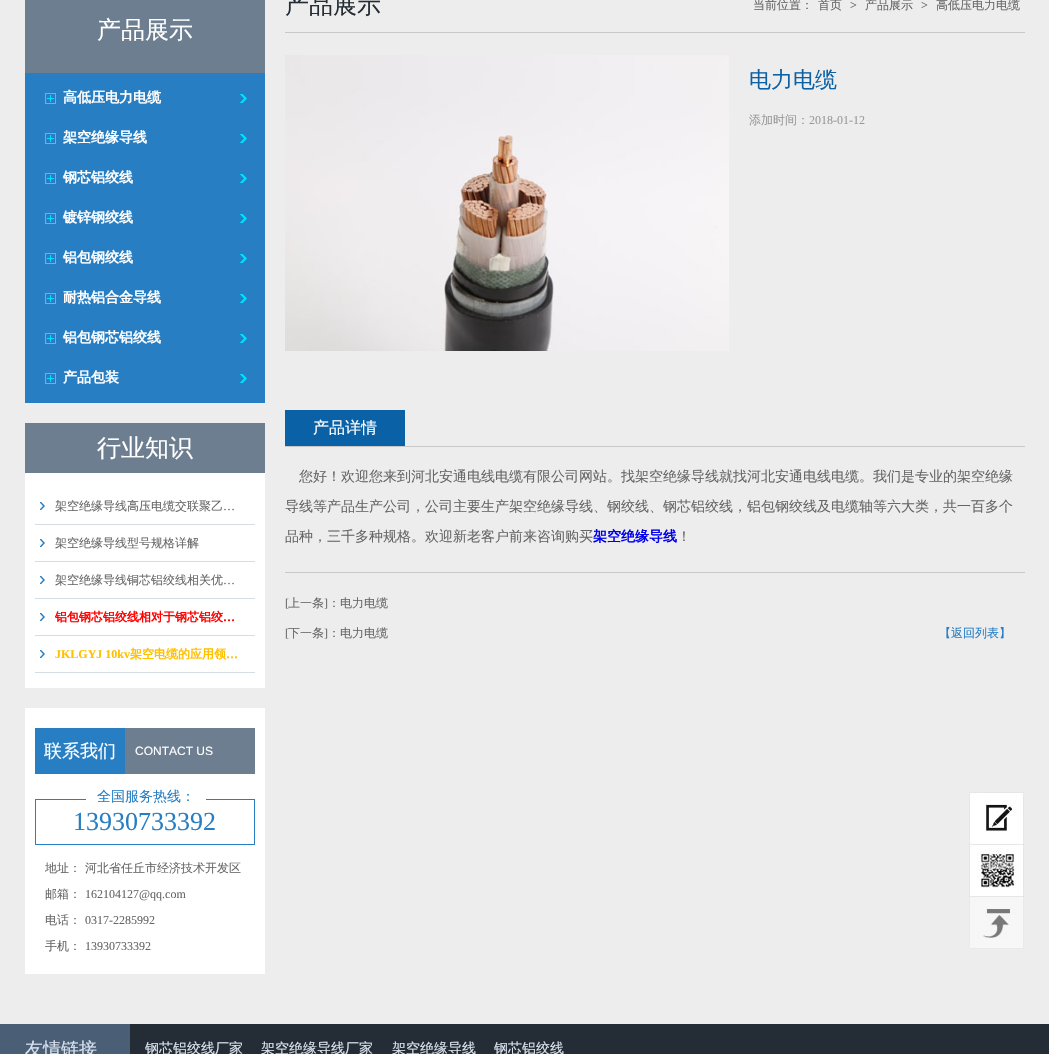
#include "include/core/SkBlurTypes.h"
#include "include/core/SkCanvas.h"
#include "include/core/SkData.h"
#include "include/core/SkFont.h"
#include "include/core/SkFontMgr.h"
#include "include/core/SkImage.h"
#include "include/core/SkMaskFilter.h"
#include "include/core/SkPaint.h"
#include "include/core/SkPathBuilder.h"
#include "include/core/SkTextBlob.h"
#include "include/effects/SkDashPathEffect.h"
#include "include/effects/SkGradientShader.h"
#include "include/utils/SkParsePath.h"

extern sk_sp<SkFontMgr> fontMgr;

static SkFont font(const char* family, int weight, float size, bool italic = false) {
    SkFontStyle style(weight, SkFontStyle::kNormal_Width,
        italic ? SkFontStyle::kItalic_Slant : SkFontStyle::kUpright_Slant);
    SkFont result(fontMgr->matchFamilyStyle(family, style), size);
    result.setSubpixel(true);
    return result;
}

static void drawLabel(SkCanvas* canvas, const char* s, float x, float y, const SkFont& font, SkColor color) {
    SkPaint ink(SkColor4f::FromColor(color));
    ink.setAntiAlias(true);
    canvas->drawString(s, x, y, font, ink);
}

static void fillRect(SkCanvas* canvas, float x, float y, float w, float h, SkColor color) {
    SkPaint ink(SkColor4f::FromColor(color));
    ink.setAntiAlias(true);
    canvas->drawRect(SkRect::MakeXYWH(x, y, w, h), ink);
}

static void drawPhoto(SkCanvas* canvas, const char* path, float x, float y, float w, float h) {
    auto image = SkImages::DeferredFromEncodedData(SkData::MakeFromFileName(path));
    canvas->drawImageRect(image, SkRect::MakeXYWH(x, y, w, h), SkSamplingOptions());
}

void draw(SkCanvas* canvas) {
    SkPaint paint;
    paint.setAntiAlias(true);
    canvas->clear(0xFFEDEDED);
    fillRect(canvas, 25, 73, 240, 330, 0xFF277EC3);
    fillRect(canvas, 25, 0, 240, 73, 0xFF6C7E8F);
    SkFont font1 = font("WenQuanYi Zen Hei", 500, 24);
    drawLabel(canvas, "产品展示", 97, 38, font1, 0xFFFFFFFF);
    drawPhoto(canvas, "assets/img1.png", 45, 93, 202, 11);
    SkFont font2 = font("WenQuanYi Zen Hei", 700, 14);
    drawLabel(canvas, "高低压电力电缆", 63, 102, font2, 0xFFFFFFFF);
    drawPhoto(canvas, "assets/img1.png", 45, 133, 202, 11);
    drawLabel(canvas, "架空绝缘导线", 63, 142, font2, 0xFFFFFFFF);
    drawPhoto(canvas, "assets/img1.png", 45, 173, 202, 11);
    drawLabel(canvas, "钢芯铝绞线", 63, 182, font2, 0xFFFFFFFF);
    drawPhoto(canvas, "assets/img1.png", 45, 213, 202, 11);
    drawLabel(canvas, "镀锌钢绞线", 63, 222, font2, 0xFFFFFFFF);
    drawPhoto(canvas, "assets/img1.png", 45, 253, 202, 11);
    drawLabel(canvas, "铝包钢绞线", 63, 262, font2, 0xFFFFFFFF);
    drawPhoto(canvas, "assets/img1.png", 45, 293, 202, 11);
    drawLabel(canvas, "耐热铝合金导线", 63, 302, font2, 0xFFFFFFFF);
    drawPhoto(canvas, "assets/img1.png", 45, 333, 202, 11);
    drawLabel(canvas, "铝包钢芯铝绞线", 63, 342, font2, 0xFFFFFFFF);
    drawPhoto(canvas, "assets/img1.png", 45, 373, 202, 11);
    drawLabel(canvas, "产品包装", 63, 382, font2, 0xFFFFFFFF);
    fillRect(canvas, 25, 423, 240, 50, 0xFF6C7E8F);
    drawLabel(canvas, "行业知识", 97, 456, font1, 0xFFFFFFFF);
    fillRect(canvas, 25, 473, 240, 215, 0xFFFFFFFF);
    drawPhoto(canvas, "assets/img2.png", 40, 502, 5, 8);
    fillRect(canvas, 35, 524, 220, 1, 0xFFD4DDE3);
    SkFont font3 = font("WenQuanYi Zen Hei", 500, 12);
    drawLabel(canvas, "架空绝缘导线高压电缆交联聚乙", 55, 510, font3, 0xFF666666);
    SkFont font4 = font("Liberation Serif", 400, 12);
    drawLabel(canvas, "…", 223, 510, font4, 0xFF666666);
    drawPhoto(canvas, "assets/img2.png", 40, 539, 5, 8);
    fillRect(canvas, 35, 561, 220, 1, 0xFFD4DDE3);
    drawLabel(canvas, "架空绝缘导线型号规格详解", 55, 547, font3, 0xFF666666);
    drawPhoto(canvas, "assets/img2.png", 40, 576, 5, 8);
    fillRect(canvas, 35, 598, 220, 1, 0xFFD4DDE3);
    drawLabel(canvas, "架空绝缘导线铜芯铝绞线相关优", 55, 584, font3, 0xFF666666);
    drawLabel(canvas, "…", 223, 584, font4, 0xFF666666);
    drawPhoto(canvas, "assets/img2.png", 40, 613, 5, 8);
    fillRect(canvas, 35, 635, 220, 1, 0xFFD4DDE3);
    SkFont font5 = font("WenQuanYi Zen Hei", 700, 12);
    drawLabel(canvas, "铝包钢芯铝绞线相对于钢芯铝绞", 55, 621, font5, 0xFFFF0000);
    SkFont font6 = font("Liberation Serif", 700, 12);
    drawLabel(canvas, "…", 223, 621, font6, 0xFFFF0000);
    drawPhoto(canvas, "assets/img2.png", 40, 650, 5, 8);
    fillRect(canvas, 35, 672, 220, 1, 0xFFD4DDE3);
    drawLabel(canvas, "JKLGYJ 10kv", 55, 658, font6, 0xFFFFC000);
    drawLabel(canvas, "架空电缆的应用领", 130, 658, font5, 0xFFFFC000);
    drawLabel(canvas, "…", 226, 658, font6, 0xFFFFC000);
    fillRect(canvas, 25, 708, 240, 266, 0xFFFFFFFF);
    fillRect(canvas, 35, 728, 90, 46, 0xFF277EC3);
    SkFont font7 = font("WenQuanYi Zen Hei", 500, 18);
    drawLabel(canvas, "联系我们", 44, 757, font7, 0xFFFFFFFF);
    fillRect(canvas, 125, 728, 130, 46, 0xFF6C7E8F);
    SkFont font8 = font("Liberation Sans", 400, 12);
    drawLabel(canvas, "CONTACT US", 135, 755, font8, 0xFFFFFFFF);
    paint.setStroke(true);
    paint.setStrokeWidth(1);
    paint.setColor(0xFF277EC3);
    canvas->drawRect(SkRect::MakeXYWH(35.5f, 799.5f, 219, 45), paint);
    fillRect(canvas, 86, 799, 120, 1, 0xFFFFFFFF);
    SkFont font9 = font("WenQuanYi Zen Hei", 500, 14);
    drawLabel(canvas, "全国服务热线：", 97, 801, font9, 0xFF277EC3);
    SkFont font10 = font("Liberation Serif", 400, 26);
    drawLabel(canvas, "13930733392", 73, 830, font10, 0xFF277EC3);
    drawLabel(canvas, "地址：", 45, 872, font3, 0xFF666666);
    drawLabel(canvas, "河北省任丘市经济技术开发区", 85, 872, font3, 0xFF666666);
    drawLabel(canvas, "邮箱：", 45, 898, font3, 0xFF666666);
    drawLabel(canvas, "162104127@qq.com", 85, 898, font4, 0xFF666666);
    drawLabel(canvas, "电话：", 45, 924, font3, 0xFF666666);
    drawLabel(canvas, "0317-2285992", 85, 924, font4, 0xFF666666);
    drawLabel(canvas, "手机：", 45, 950, font3, 0xFF666666);
    drawLabel(canvas, "13930733392", 85, 950, font4, 0xFF666666);
    fillRect(canvas, 285, 32, 740, 1, 0xFFC8C8C8);
    drawLabel(canvas, "产品展示", 285, 13, font1, 0xFF242D36);
    drawLabel(canvas, "当前位置：", 753, 9, font3, 0xFF666666);
    drawLabel(canvas, "首页", 818, 9, font3, 0xFF666666);
    drawLabel(canvas, ">", 850, 9, font4, 0xFF666666);
    drawLabel(canvas, "产品展示", 865, 9, font3, 0xFF666666);
    drawLabel(canvas, ">", 921, 9, font4, 0xFF666666);
    drawLabel(canvas, "高低压电力电缆", 936, 9, font3, 0xFF666666);
    drawPhoto(canvas, "assets/img3.png", 285, 55, 444, 296);
    SkFont font11 = font("WenQuanYi Zen Hei", 500, 22);
    drawLabel(canvas, "电力电缆", 749, 87, font11, 0xFF0B61A5);
    drawLabel(canvas, "添加时间：", 749, 124, font3, 0xFF999999);
    drawLabel(canvas, "2018-01-12", 809, 124, font4, 0xFF999999);
    fillRect(canvas, 285, 446, 740, 1, 0xFFC8C8C8);
    fillRect(canvas, 285, 410, 120, 36, 0xFF0B61A5);
    SkFont font12 = font("WenQuanYi Zen Hei", 500, 16);
    drawLabel(canvas, "产品详情", 313, 433, font12, 0xFFFFFFFF);
    drawLabel(canvas, "您好！欢迎您来到河北安通电线电缆有限公司网站。找架空绝缘导线就找河北安通电线电缆。我们是专业的架空绝缘", 299, 481, font9, 0xFF666666);
    drawLabel(canvas, "导线等产品生产公司，公司主要生产架空绝缘导线、钢绞线、钢芯铝绞线，铝包钢绞线及电缆轴等六大类，共一百多个", 285, 511, font9, 0xFF666666);
    drawLabel(canvas, "品种，三千多种规格。欢迎新老客户前来咨询购买", 285, 541, font9, 0xFF666666);
    drawLabel(canvas, "架空绝缘导线", 593, 541, font2, 0xFF0000EE);
    drawLabel(canvas, "！", 677, 541, font9, 0xFF666666);
    fillRect(canvas, 285, 572, 740, 1, 0xFFC8C8C8);
    drawLabel(canvas, "[", 285, 607, font4, 0xFF666666);
    drawLabel(canvas, "上一条", 288, 607, font3, 0xFF666666);
    drawLabel(canvas, "]", 324, 607, font4, 0xFF666666);
    drawLabel(canvas, "：电力电缆", 328, 607, font3, 0xFF666666);
    drawLabel(canvas, "[", 285, 637, font4, 0xFF666666);
    drawLabel(canvas, "下一条", 288, 637, font3, 0xFF666666);
    drawLabel(canvas, "]", 324, 637, font4, 0xFF666666);
    drawLabel(canvas, "：电力电缆", 328, 637, font3, 0xFF666666);
    drawLabel(canvas, "【返回列表】", 939, 637, font3, 0xFF277EC3);
    drawPhoto(canvas, "assets/img4.png", 969, 792, 55, 53);
    drawPhoto(canvas, "assets/img5.png", 969, 845, 55, 52);
    drawPhoto(canvas, "assets/img6.png", 969, 897, 55, 52);
    fillRect(canvas, 130, 1024, 919, 30, 0xFF242D36);
    fillRect(canvas, 0, 1024, 130, 30, 0xFF4A5F75);
    drawLabel(canvas, "友情链接", 25, 1055, font7, 0xFFDAE2EF);
    drawLabel(canvas, "钢芯铝绞线厂家", 145, 1053, font9, 0xFFDAE2EF);
    drawLabel(canvas, "架空绝缘导线厂家", 261, 1053, font9, 0xFFDAE2EF);
    drawLabel(canvas, "架空绝缘导线", 392, 1053, font9, 0xFFDAE2EF);
    drawLabel(canvas, "钢芯铝绞线", 494, 1053, font9, 0xFFDAE2EF);
}
